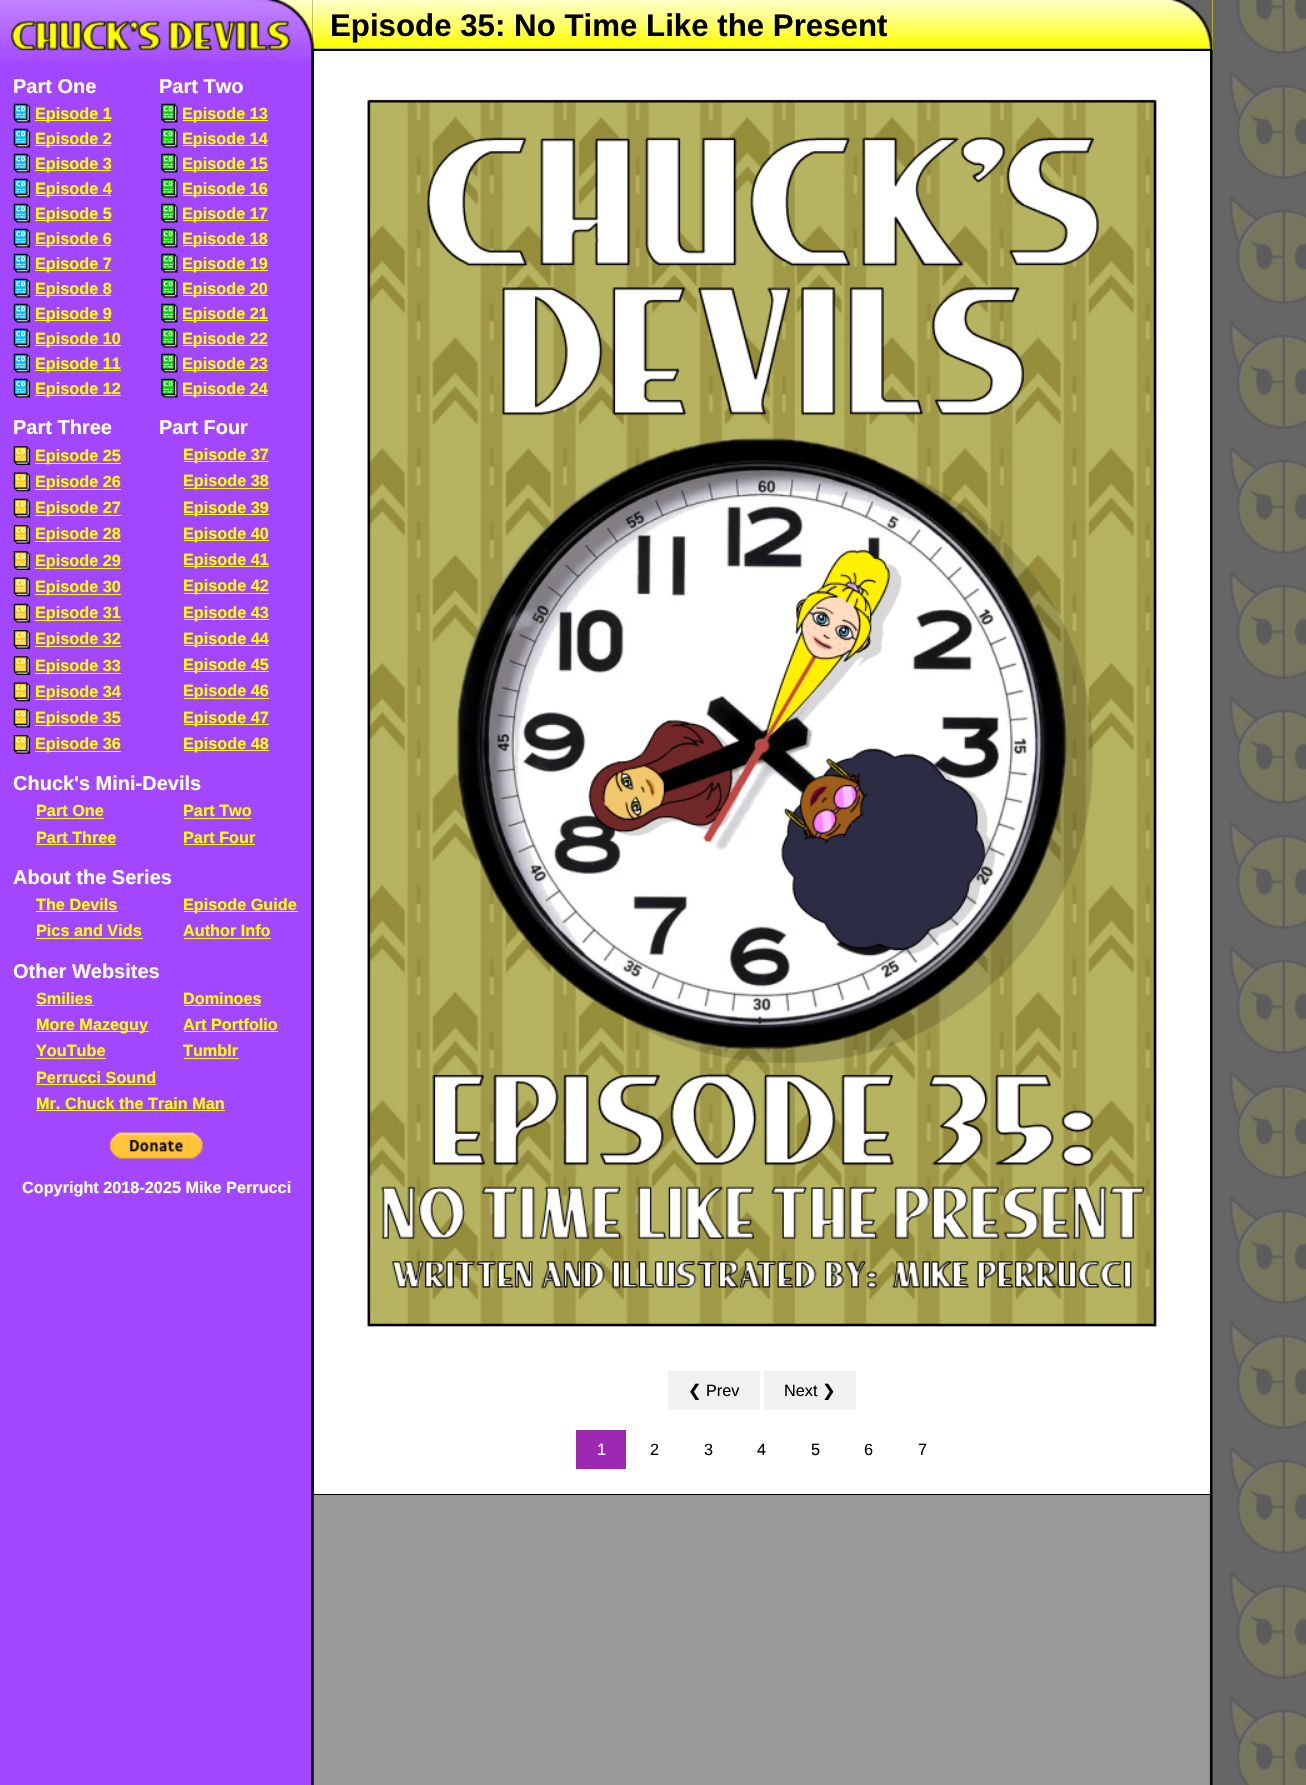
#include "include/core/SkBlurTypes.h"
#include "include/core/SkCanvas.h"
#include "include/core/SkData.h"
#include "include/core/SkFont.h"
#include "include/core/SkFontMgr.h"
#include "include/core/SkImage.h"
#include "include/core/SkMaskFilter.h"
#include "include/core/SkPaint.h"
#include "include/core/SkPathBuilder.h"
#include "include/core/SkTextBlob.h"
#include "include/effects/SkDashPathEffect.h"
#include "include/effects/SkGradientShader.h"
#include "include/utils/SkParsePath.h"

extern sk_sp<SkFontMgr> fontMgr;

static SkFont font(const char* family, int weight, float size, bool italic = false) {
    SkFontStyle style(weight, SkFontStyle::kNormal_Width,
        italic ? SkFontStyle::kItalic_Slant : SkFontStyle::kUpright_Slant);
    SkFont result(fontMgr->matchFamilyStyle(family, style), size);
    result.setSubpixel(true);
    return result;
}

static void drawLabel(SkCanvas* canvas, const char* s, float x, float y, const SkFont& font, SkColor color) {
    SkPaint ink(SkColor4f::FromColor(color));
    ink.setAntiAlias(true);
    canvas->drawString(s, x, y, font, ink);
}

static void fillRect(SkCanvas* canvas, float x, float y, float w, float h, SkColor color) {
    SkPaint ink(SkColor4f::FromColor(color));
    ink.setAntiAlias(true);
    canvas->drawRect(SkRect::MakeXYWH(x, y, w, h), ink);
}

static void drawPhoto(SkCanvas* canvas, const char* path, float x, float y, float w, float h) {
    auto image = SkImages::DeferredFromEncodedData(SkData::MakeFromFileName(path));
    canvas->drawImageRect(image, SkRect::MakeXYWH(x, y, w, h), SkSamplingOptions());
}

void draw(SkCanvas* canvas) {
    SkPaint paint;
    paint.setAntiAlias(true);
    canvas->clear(0xFFA247FF);
    drawPhoto(canvas, "assets/img1.png", 311, 0, 995, 1785);
    fillRect(canvas, 1212, 0, 1, 50, 0xFFFFFF00);
    drawPhoto(canvas, "assets/img11.png", 312, 0, 901, 50);
    drawPhoto(canvas, "assets/img2.png", 0, 0, 313, 61);
    SkFont font1 = font("Liberation Sans", 700, 20);
    drawLabel(canvas, "Part One", 13, 93, font1, 0xFFFFFFFF);
    drawLabel(canvas, "Part Two", 159, 93, font1, 0xFFFFFFFF);
    drawPhoto(canvas, "assets/img3.png", 13, 103, 18, 20);
    fillRect(canvas, 35, 120, 76, 1, 0xFFFFFF00);
    SkFont font2 = font("Liberation Sans", 700, 16.25f);
    drawLabel(canvas, "Episode 1", 35, 119, font2, 0xFFFFFF00);
    drawPhoto(canvas, "assets/img4.png", 161, 103, 17, 20);
    fillRect(canvas, 183, 120, 85, 1, 0xFFFFFF00);
    drawLabel(canvas, "Episode 13", 182, 119, font2, 0xFFFFFF00);
    drawPhoto(canvas, "assets/img3.png", 13, 128, 18, 20);
    fillRect(canvas, 35, 145, 76, 1, 0xFFFFFF00);
    drawLabel(canvas, "Episode 2", 35, 144, font2, 0xFFFFFF00);
    drawPhoto(canvas, "assets/img4.png", 161, 128, 17, 20);
    fillRect(canvas, 183, 145, 85, 1, 0xFFFFFF00);
    drawLabel(canvas, "Episode 14", 182, 144, font2, 0xFFFFFF00);
    drawPhoto(canvas, "assets/img3.png", 13, 153, 18, 20);
    fillRect(canvas, 35, 170, 76, 1, 0xFFFFFF00);
    drawLabel(canvas, "Episode 3", 35, 169, font2, 0xFFFFFF00);
    drawPhoto(canvas, "assets/img4.png", 161, 153, 17, 20);
    fillRect(canvas, 183, 170, 85, 1, 0xFFFFFF00);
    drawLabel(canvas, "Episode 15", 182, 169, font2, 0xFFFFFF00);
    drawPhoto(canvas, "assets/img3.png", 13, 178, 18, 20);
    fillRect(canvas, 35, 195, 76, 1, 0xFFFFFF00);
    drawLabel(canvas, "Episode 4", 35, 194, font2, 0xFFFFFF00);
    drawPhoto(canvas, "assets/img4.png", 161, 178, 17, 20);
    fillRect(canvas, 183, 195, 85, 1, 0xFFFFFF00);
    drawLabel(canvas, "Episode 16", 182, 194, font2, 0xFFFFFF00);
    drawPhoto(canvas, "assets/img3.png", 13, 203, 18, 20);
    fillRect(canvas, 35, 220, 76, 1, 0xFFFFFF00);
    drawLabel(canvas, "Episode 5", 35, 219, font2, 0xFFFFFF00);
    drawPhoto(canvas, "assets/img4.png", 161, 203, 17, 20);
    fillRect(canvas, 183, 220, 85, 1, 0xFFFFFF00);
    drawLabel(canvas, "Episode 17", 182, 219, font2, 0xFFFFFF00);
    drawPhoto(canvas, "assets/img3.png", 13, 228, 18, 20);
    fillRect(canvas, 35, 245, 76, 1, 0xFFFFFF00);
    drawLabel(canvas, "Episode 6", 35, 244, font2, 0xFFFFFF00);
    drawPhoto(canvas, "assets/img4.png", 161, 228, 17, 20);
    fillRect(canvas, 183, 245, 85, 1, 0xFFFFFF00);
    drawLabel(canvas, "Episode 18", 182, 244, font2, 0xFFFFFF00);
    drawPhoto(canvas, "assets/img3.png", 13, 253, 18, 20);
    fillRect(canvas, 35, 270, 76, 1, 0xFFFFFF00);
    drawLabel(canvas, "Episode 7", 35, 269, font2, 0xFFFFFF00);
    drawPhoto(canvas, "assets/img4.png", 161, 253, 17, 20);
    fillRect(canvas, 183, 270, 85, 1, 0xFFFFFF00);
    drawLabel(canvas, "Episode 19", 182, 269, font2, 0xFFFFFF00);
    drawPhoto(canvas, "assets/img3.png", 13, 278, 18, 20);
    fillRect(canvas, 35, 295, 76, 1, 0xFFFFFF00);
    drawLabel(canvas, "Episode 8", 35, 294, font2, 0xFFFFFF00);
    drawPhoto(canvas, "assets/img4.png", 161, 278, 17, 20);
    fillRect(canvas, 183, 295, 85, 1, 0xFFFFFF00);
    drawLabel(canvas, "Episode 20", 182, 294, font2, 0xFFFFFF00);
    drawPhoto(canvas, "assets/img3.png", 13, 303, 18, 20);
    fillRect(canvas, 35, 320, 76, 1, 0xFFFFFF00);
    drawLabel(canvas, "Episode 9", 35, 319, font2, 0xFFFFFF00);
    drawPhoto(canvas, "assets/img4.png", 161, 303, 17, 20);
    fillRect(canvas, 183, 320, 85, 1, 0xFFFFFF00);
    drawLabel(canvas, "Episode 21", 182, 319, font2, 0xFFFFFF00);
    drawPhoto(canvas, "assets/img3.png", 13, 328, 18, 20);
    fillRect(canvas, 35, 345, 86, 1, 0xFFFFFF00);
    drawLabel(canvas, "Episode 10", 35, 344, font2, 0xFFFFFF00);
    drawPhoto(canvas, "assets/img4.png", 161, 328, 17, 20);
    fillRect(canvas, 183, 345, 85, 1, 0xFFFFFF00);
    drawLabel(canvas, "Episode 22", 182, 344, font2, 0xFFFFFF00);
    drawPhoto(canvas, "assets/img3.png", 13, 353, 18, 20);
    fillRect(canvas, 35, 370, 86, 1, 0xFFFFFF00);
    drawLabel(canvas, "Episode 11", 35, 369, font2, 0xFFFFFF00);
    drawPhoto(canvas, "assets/img4.png", 161, 353, 17, 20);
    fillRect(canvas, 183, 370, 85, 1, 0xFFFFFF00);
    drawLabel(canvas, "Episode 23", 182, 369, font2, 0xFFFFFF00);
    drawPhoto(canvas, "assets/img3.png", 13, 378, 18, 20);
    fillRect(canvas, 35, 395, 86, 1, 0xFFFFFF00);
    drawLabel(canvas, "Episode 12", 35, 394, font2, 0xFFFFFF00);
    drawPhoto(canvas, "assets/img4.png", 161, 378, 17, 20);
    fillRect(canvas, 183, 395, 85, 1, 0xFFFFFF00);
    drawLabel(canvas, "Episode 24", 182, 394, font2, 0xFFFFFF00);
    drawLabel(canvas, "Part Three", 13, 434, font1, 0xFFFFFFFF);
    drawLabel(canvas, "Part Four", 159, 434, font1, 0xFFFFFFFF);
    drawPhoto(canvas, "assets/img5.png", 13, 446, 18, 19);
    fillRect(canvas, 35, 463, 86, 1, 0xFFFFFF00);
    drawLabel(canvas, "Episode 25", 35, 461, font2, 0xFFFFFF00);
    fillRect(canvas, 184, 461, 85, 1, 0xFFFFFF00);
    drawLabel(canvas, "Episode 37", 183, 460, font2, 0xFFFFFF00);
    drawPhoto(canvas, "assets/img6.png", 13, 472, 18, 20);
    fillRect(canvas, 35, 489, 86, 1, 0xFFFFFF00);
    drawLabel(canvas, "Episode 26", 35, 487, font2, 0xFFFFFF00);
    fillRect(canvas, 184, 488, 85, 1, 0xFFFFFF00);
    drawLabel(canvas, "Episode 38", 183, 486, font2, 0xFFFFFF00);
    drawPhoto(canvas, "assets/img7.png", 13, 498, 18, 20);
    fillRect(canvas, 35, 515, 86, 1, 0xFFFFFF00);
    drawLabel(canvas, "Episode 27", 35, 513, font2, 0xFFFFFF00);
    fillRect(canvas, 184, 514, 85, 1, 0xFFFFFF00);
    drawLabel(canvas, "Episode 39", 183, 513, font2, 0xFFFFFF00);
    drawPhoto(canvas, "assets/img8.png", 13, 525, 18, 19);
    fillRect(canvas, 35, 541, 86, 1, 0xFFFFFF00);
    drawLabel(canvas, "Episode 28", 35, 539, font2, 0xFFFFFF00);
    fillRect(canvas, 184, 540, 85, 1, 0xFFFFFF00);
    drawLabel(canvas, "Episode 40", 183, 539, font2, 0xFFFFFF00);
    drawPhoto(canvas, "assets/img5.png", 13, 551, 18, 19);
    fillRect(canvas, 35, 568, 86, 1, 0xFFFFFF00);
    drawLabel(canvas, "Episode 29", 35, 566, font2, 0xFFFFFF00);
    fillRect(canvas, 184, 566, 85, 1, 0xFFFFFF00);
    drawLabel(canvas, "Episode 41", 183, 565, font2, 0xFFFFFF00);
    drawPhoto(canvas, "assets/img9.png", 13, 577, 18, 20);
    fillRect(canvas, 35, 594, 86, 1, 0xFFFFFF00);
    drawLabel(canvas, "Episode 30", 35, 592, font2, 0xFFFFFF00);
    fillRect(canvas, 184, 593, 85, 1, 0xFFFFFF00);
    drawLabel(canvas, "Episode 42", 183, 591, font2, 0xFFFFFF00);
    drawPhoto(canvas, "assets/img7.png", 13, 603, 18, 20);
    fillRect(canvas, 35, 620, 86, 1, 0xFFFFFF00);
    drawLabel(canvas, "Episode 31", 35, 618, font2, 0xFFFFFF00);
    fillRect(canvas, 184, 619, 85, 1, 0xFFFFFF00);
    drawLabel(canvas, "Episode 43", 183, 618, font2, 0xFFFFFF00);
    drawPhoto(canvas, "assets/img8.png", 13, 630, 18, 19);
    fillRect(canvas, 35, 646, 86, 1, 0xFFFFFF00);
    drawLabel(canvas, "Episode 32", 35, 644, font2, 0xFFFFFF00);
    fillRect(canvas, 184, 645, 85, 1, 0xFFFFFF00);
    drawLabel(canvas, "Episode 44", 183, 644, font2, 0xFFFFFF00);
    drawPhoto(canvas, "assets/img5.png", 13, 656, 18, 19);
    fillRect(canvas, 35, 673, 86, 1, 0xFFFFFF00);
    drawLabel(canvas, "Episode 33", 35, 671, font2, 0xFFFFFF00);
    fillRect(canvas, 184, 671, 85, 1, 0xFFFFFF00);
    drawLabel(canvas, "Episode 45", 183, 670, font2, 0xFFFFFF00);
    drawPhoto(canvas, "assets/img6.png", 13, 682, 18, 20);
    fillRect(canvas, 35, 699, 86, 1, 0xFFFFFF00);
    drawLabel(canvas, "Episode 34", 35, 697, font2, 0xFFFFFF00);
    fillRect(canvas, 184, 698, 85, 1, 0xFFFFFF00);
    drawLabel(canvas, "Episode 46", 183, 696, font2, 0xFFFFFF00);
    drawPhoto(canvas, "assets/img7.png", 13, 708, 18, 20);
    fillRect(canvas, 35, 725, 86, 1, 0xFFFFFF00);
    drawLabel(canvas, "Episode 35", 35, 723, font2, 0xFFFFFF00);
    fillRect(canvas, 184, 724, 85, 1, 0xFFFFFF00);
    drawLabel(canvas, "Episode 47", 183, 723, font2, 0xFFFFFF00);
    drawPhoto(canvas, "assets/img8.png", 13, 735, 18, 19);
    fillRect(canvas, 35, 751, 86, 1, 0xFFFFFF00);
    drawLabel(canvas, "Episode 36", 35, 749, font2, 0xFFFFFF00);
    fillRect(canvas, 184, 750, 85, 1, 0xFFFFFF00);
    drawLabel(canvas, "Episode 48", 183, 749, font2, 0xFFFFFF00);
    drawLabel(canvas, "Chuck's Mini-Devils", 13, 790, font1, 0xFFFFFFFF);
    drawLabel(canvas, "Part One", 36, 816, font2, 0xFFFFFF00);
    fillRect(canvas, 36, 818, 68, 1, 0xFFFFFF00);
    drawLabel(canvas, "Part Two", 183, 816, font2, 0xFFFFFF00);
    fillRect(canvas, 184, 818, 67, 1, 0xFFFFFF00);
    drawLabel(canvas, "Part Three", 36, 843, font2, 0xFFFFFF00);
    fillRect(canvas, 36, 844, 80, 1, 0xFFFFFF00);
    drawLabel(canvas, "Part Four", 183, 843, font2, 0xFFFFFF00);
    fillRect(canvas, 184, 844, 71, 1, 0xFFFFFF00);
    drawLabel(canvas, "About the Series", 13, 884, font1, 0xFFFFFFFF);
    drawLabel(canvas, "The Devils", 36, 910, font2, 0xFFFFFF00);
    fillRect(canvas, 36, 911, 82, 1, 0xFFFFFF00);
    fillRect(canvas, 184, 911, 114, 1, 0xFFFFFF00);
    drawLabel(canvas, "Episode Guide", 183, 910, font2, 0xFFFFFF00);
    drawLabel(canvas, "Pics and Vids", 36, 936, font2, 0xFFFFFF00);
    fillRect(canvas, 36, 938, 107, 1, 0xFFFFFF00);
    drawLabel(canvas, "Author Info", 183, 936, font2, 0xFFFFFF00);
    fillRect(canvas, 184, 938, 87, 1, 0xFFFFFF00);
    drawLabel(canvas, "Other Websites", 13, 978, font1, 0xFFFFFFFF);
    drawLabel(canvas, "Smilies", 36, 1004, font2, 0xFFFFFF00);
    fillRect(canvas, 36, 1005, 58, 1, 0xFFFFFF00);
    drawLabel(canvas, "Dominoes", 183, 1004, font2, 0xFFFFFF00);
    fillRect(canvas, 184, 1005, 77, 1, 0xFFFFFF00);
    fillRect(canvas, 36, 1031, 113, 1, 0xFFFFFF00);
    drawLabel(canvas, "More Mazeguy", 36, 1030, font2, 0xFFFFFF00);
    drawLabel(canvas, "Art Portfolio", 183, 1030, font2, 0xFFFFFF00);
    fillRect(canvas, 184, 1031, 94, 1, 0xFFFFFF00);
    drawLabel(canvas, "YouTube", 36, 1056, font2, 0xFFFFFF00);
    fillRect(canvas, 36, 1058, 70, 1, 0xFFFFFF00);
    drawLabel(canvas, "Tumblr", 183, 1056, font2, 0xFFFFFF00);
    fillRect(canvas, 184, 1058, 55, 1, 0xFFFFFF00);
    drawLabel(canvas, "Perrucci Sound", 36, 1083, font2, 0xFFFFFF00);
    fillRect(canvas, 36, 1084, 120, 1, 0xFFFFFF00);
    drawLabel(canvas, "Mr. Chuck the Train Man", 36, 1109, font2, 0xFFFFFF00);
    fillRect(canvas, 36, 1110, 189, 1, 0xFFFFFF00);
    drawPhoto(canvas, "assets/img10.png", 110, 1132, 93, 27);
    drawLabel(canvas, "Copyright 2018-2025 Mike Perrucci", 22, 1193, font2, 0xFFFFFFFF);
    SkFont font3 = font("Liberation Sans", 700, 31.25f);
    drawLabel(canvas, "Episode 35: No Time Like the Present", 330, 36, font3, 0xFF000000);
    fillRect(canvas, 313, 50, 898, 1445, 0xFF000000);
    fillRect(canvas, 314, 51, 896, 1443, 0xFFFFFFFF);
    drawPhoto(canvas, "assets/img12.png", 367, 99, 790, 1228);
    fillRect(canvas, 668, 1371, 92, 39, 0xFFF1F1F1);
    SkFont font4 = font("DejaVu Sans", 400, 16.25f);
    drawLabel(canvas, "❮", 688, 1396, font4, 0xFF000000);
    SkFont font5 = font("Liberation Sans", 400, 16.25f);
    drawLabel(canvas, "Prev", 706, 1396, font5, 0xFF000000);
    fillRect(canvas, 764, 1371, 92, 39, 0xFFF1F1F1);
    drawLabel(canvas, "Next", 784, 1396, font5, 0xFF000000);
    drawLabel(canvas, "❯", 822, 1396, font4, 0xFF000000);
    fillRect(canvas, 576, 1430, 50, 39, 0xFF9C27B0);
    drawLabel(canvas, "1", 597, 1455, font5, 0xFFFFFFFF);
    drawLabel(canvas, "2", 650, 1455, font5, 0xFF000000);
    drawLabel(canvas, "3", 704, 1455, font5, 0xFF000000);
    drawLabel(canvas, "4", 757, 1455, font5, 0xFF000000);
    drawLabel(canvas, "5", 811, 1455, font5, 0xFF000000);
    drawLabel(canvas, "6", 864, 1455, font5, 0xFF000000);
    drawLabel(canvas, "7", 918, 1455, font5, 0xFF000000);
}
